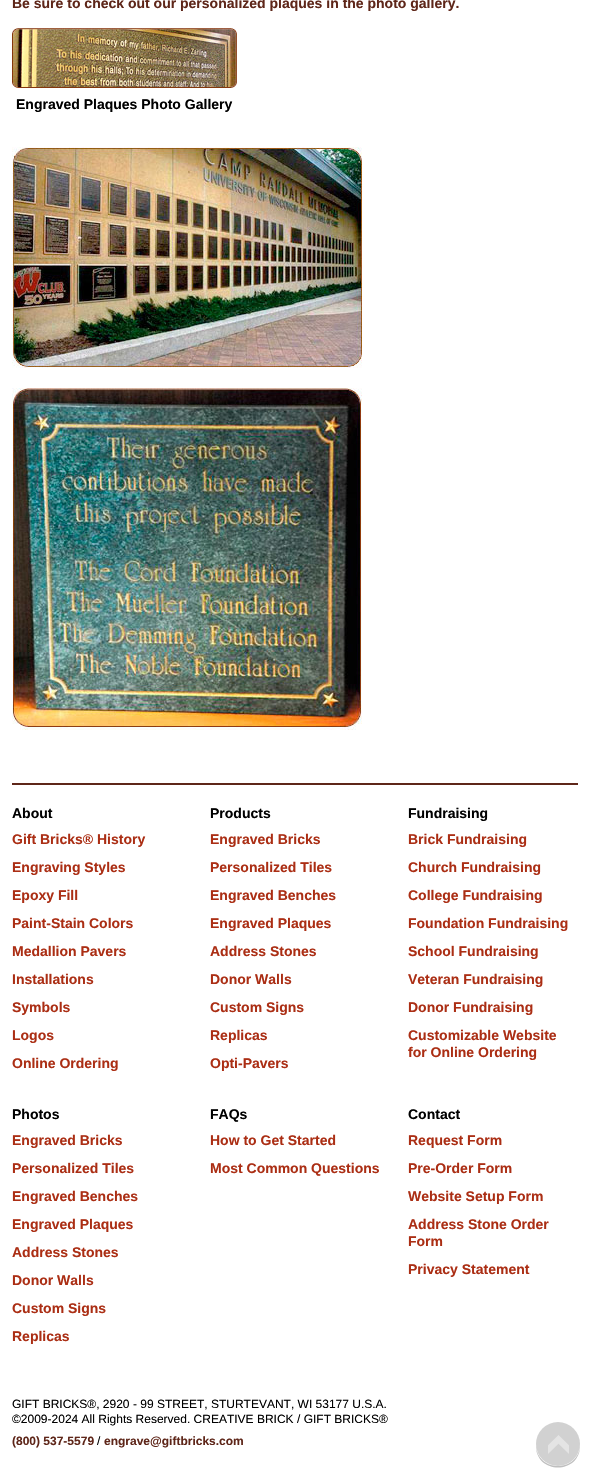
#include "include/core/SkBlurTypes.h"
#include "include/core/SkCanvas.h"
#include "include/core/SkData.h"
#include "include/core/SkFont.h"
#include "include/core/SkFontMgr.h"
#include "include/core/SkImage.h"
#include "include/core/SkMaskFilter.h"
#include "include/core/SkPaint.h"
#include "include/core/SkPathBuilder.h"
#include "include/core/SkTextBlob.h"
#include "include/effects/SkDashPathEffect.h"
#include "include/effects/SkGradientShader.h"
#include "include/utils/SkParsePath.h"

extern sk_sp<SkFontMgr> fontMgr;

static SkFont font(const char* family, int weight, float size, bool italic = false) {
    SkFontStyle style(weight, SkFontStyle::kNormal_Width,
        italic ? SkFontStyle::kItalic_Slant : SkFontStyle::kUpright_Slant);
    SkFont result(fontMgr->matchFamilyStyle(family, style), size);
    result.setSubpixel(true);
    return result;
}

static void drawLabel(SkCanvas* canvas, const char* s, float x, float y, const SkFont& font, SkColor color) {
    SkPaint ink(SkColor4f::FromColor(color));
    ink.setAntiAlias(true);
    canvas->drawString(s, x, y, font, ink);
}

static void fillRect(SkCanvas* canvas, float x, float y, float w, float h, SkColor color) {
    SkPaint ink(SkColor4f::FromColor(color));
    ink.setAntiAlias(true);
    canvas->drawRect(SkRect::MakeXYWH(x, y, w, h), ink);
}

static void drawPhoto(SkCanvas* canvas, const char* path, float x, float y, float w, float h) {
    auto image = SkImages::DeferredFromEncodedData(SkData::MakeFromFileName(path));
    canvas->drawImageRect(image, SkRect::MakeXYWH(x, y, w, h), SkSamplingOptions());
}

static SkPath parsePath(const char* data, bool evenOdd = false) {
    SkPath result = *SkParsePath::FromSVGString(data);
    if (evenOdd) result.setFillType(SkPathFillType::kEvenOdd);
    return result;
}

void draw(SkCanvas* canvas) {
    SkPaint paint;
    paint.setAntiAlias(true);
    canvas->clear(0xFFFFFFFF);
    SkFont font1 = font("Liberation Sans", 700, 14);
    drawLabel(canvas, "Be sure to check out our personalized plaques in the photo gallery.", 12, 8, font1, 0xFF5E2619);
    drawPhoto(canvas, "assets/img1.png", 12, 28, 225, 60);
    drawLabel(canvas, "Engraved Plaques Photo Gallery", 16, 109, font1, 0xFF000000);
    drawPhoto(canvas, "assets/img2.png", 12, 147, 350, 221);
    drawPhoto(canvas, "assets/img3.png", 12, 388, 350, 342);
    fillRect(canvas, 12, 783, 566, 2, 0xFF5E2619);
    drawLabel(canvas, "About", 12, 818, font1, 0xFF000000);
    drawLabel(canvas, "Gift Bricks® History", 12, 844, font1, 0xFFAB2E14);
    drawLabel(canvas, "Engraving Styles", 12, 872, font1, 0xFFAB2E14);
    drawLabel(canvas, "Epoxy Fill", 12, 900, font1, 0xFFAB2E14);
    drawLabel(canvas, "Paint-Stain Colors", 12, 928, font1, 0xFFAB2E14);
    drawLabel(canvas, "Medallion Pavers", 12, 956, font1, 0xFFAB2E14);
    drawLabel(canvas, "Installations", 12, 984, font1, 0xFFAB2E14);
    drawLabel(canvas, "Symbols", 12, 1012, font1, 0xFFAB2E14);
    drawLabel(canvas, "Logos", 12, 1040, font1, 0xFFAB2E14);
    drawLabel(canvas, "Online Ordering", 12, 1068, font1, 0xFFAB2E14);
    drawLabel(canvas, "Products", 210, 818, font1, 0xFF000000);
    drawLabel(canvas, "Engraved Bricks", 210, 844, font1, 0xFFAB2E14);
    drawLabel(canvas, "Personalized Tiles", 210, 872, font1, 0xFFAB2E14);
    drawLabel(canvas, "Engraved Benches", 210, 900, font1, 0xFFAB2E14);
    drawLabel(canvas, "Engraved Plaques", 210, 928, font1, 0xFFAB2E14);
    drawLabel(canvas, "Address Stones", 210, 956, font1, 0xFFAB2E14);
    drawLabel(canvas, "Donor Walls", 210, 984, font1, 0xFFAB2E14);
    drawLabel(canvas, "Custom Signs", 210, 1012, font1, 0xFFAB2E14);
    drawLabel(canvas, "Replicas", 210, 1040, font1, 0xFFAB2E14);
    drawLabel(canvas, "Opti-Pavers", 210, 1068, font1, 0xFFAB2E14);
    drawLabel(canvas, "Fundraising", 408, 818, font1, 0xFF000000);
    drawLabel(canvas, "Brick Fundraising", 408, 844, font1, 0xFFAB2E14);
    drawLabel(canvas, "Church Fundraising", 408, 872, font1, 0xFFAB2E14);
    drawLabel(canvas, "College Fundraising", 408, 900, font1, 0xFFAB2E14);
    drawLabel(canvas, "Foundation Fundraising", 408, 928, font1, 0xFFAB2E14);
    drawLabel(canvas, "School Fundraising", 408, 956, font1, 0xFFAB2E14);
    drawLabel(canvas, "Veteran Fundraising", 408, 984, font1, 0xFFAB2E14);
    drawLabel(canvas, "Donor Fundraising", 408, 1012, font1, 0xFFAB2E14);
    drawLabel(canvas, "Customizable Website", 408, 1040, font1, 0xFFAB2E14);
    drawLabel(canvas, "for Online Ordering", 408, 1057, font1, 0xFFAB2E14);
    drawLabel(canvas, "Photos", 12, 1119, font1, 0xFF000000);
    drawLabel(canvas, "Engraved Bricks", 12, 1145, font1, 0xFFAB2E14);
    drawLabel(canvas, "Personalized Tiles", 12, 1173, font1, 0xFFAB2E14);
    drawLabel(canvas, "Engraved Benches", 12, 1201, font1, 0xFFAB2E14);
    drawLabel(canvas, "Engraved Plaques", 12, 1229, font1, 0xFFAB2E14);
    drawLabel(canvas, "Address Stones", 12, 1257, font1, 0xFFAB2E14);
    drawLabel(canvas, "Donor Walls", 12, 1285, font1, 0xFFAB2E14);
    drawLabel(canvas, "Custom Signs", 12, 1313, font1, 0xFFAB2E14);
    drawLabel(canvas, "Replicas", 12, 1341, font1, 0xFFAB2E14);
    drawLabel(canvas, "FAQs", 210, 1119, font1, 0xFF000000);
    drawLabel(canvas, "How to Get Started", 210, 1145, font1, 0xFFAB2E14);
    drawLabel(canvas, "Most Common Questions", 210, 1173, font1, 0xFFAB2E14);
    drawLabel(canvas, "Contact", 408, 1119, font1, 0xFF000000);
    drawLabel(canvas, "Request Form", 408, 1145, font1, 0xFFAB2E14);
    drawLabel(canvas, "Pre-Order Form", 408, 1173, font1, 0xFFAB2E14);
    drawLabel(canvas, "Website Setup Form", 408, 1201, font1, 0xFFAB2E14);
    drawLabel(canvas, "Address Stone Order", 408, 1229, font1, 0xFFAB2E14);
    drawLabel(canvas, "Form", 408, 1246, font1, 0xFFAB2E14);
    drawLabel(canvas, "Privacy Statement", 408, 1274, font1, 0xFFAB2E14);
    SkFont font2 = font("Liberation Sans", 400, 12);
    drawLabel(canvas, "GIFT BRICKS®, 2920 - 99 STREET, STURTEVANT, WI 53177 U.S.A.", 12, 1408, font2, 0xFF000000);
    drawLabel(canvas, "©2009-2024 All Rights Reserved. CREATIVE BRICK / GIFT BRICKS®", 12, 1423, font2, 0xFF000000);
    SkFont font3 = font("Liberation Sans", 700, 12);
    drawLabel(canvas, "(800) 537-5579", 12, 1445, font3, 0xFF5E2619);
    drawLabel(canvas, "/", 97, 1445, font2, 0xFF000000);
    drawLabel(canvas, "engrave@giftbricks.com", 104, 1445, font3, 0xFF5E2619);
    paint.setColor(0xFFBFBFBF);
    canvas->drawPath(parsePath("M536 1445C535 1475 581 1475 580 1445C579 1473 537 1473 536 1445Z"), paint);
    paint.setColor(0x80A3A3A3);
    canvas->drawCircle(558, 1444, 22, paint);
    drawPhoto(canvas, "assets/img4.png", 548, 1435, 21, 19);
}
